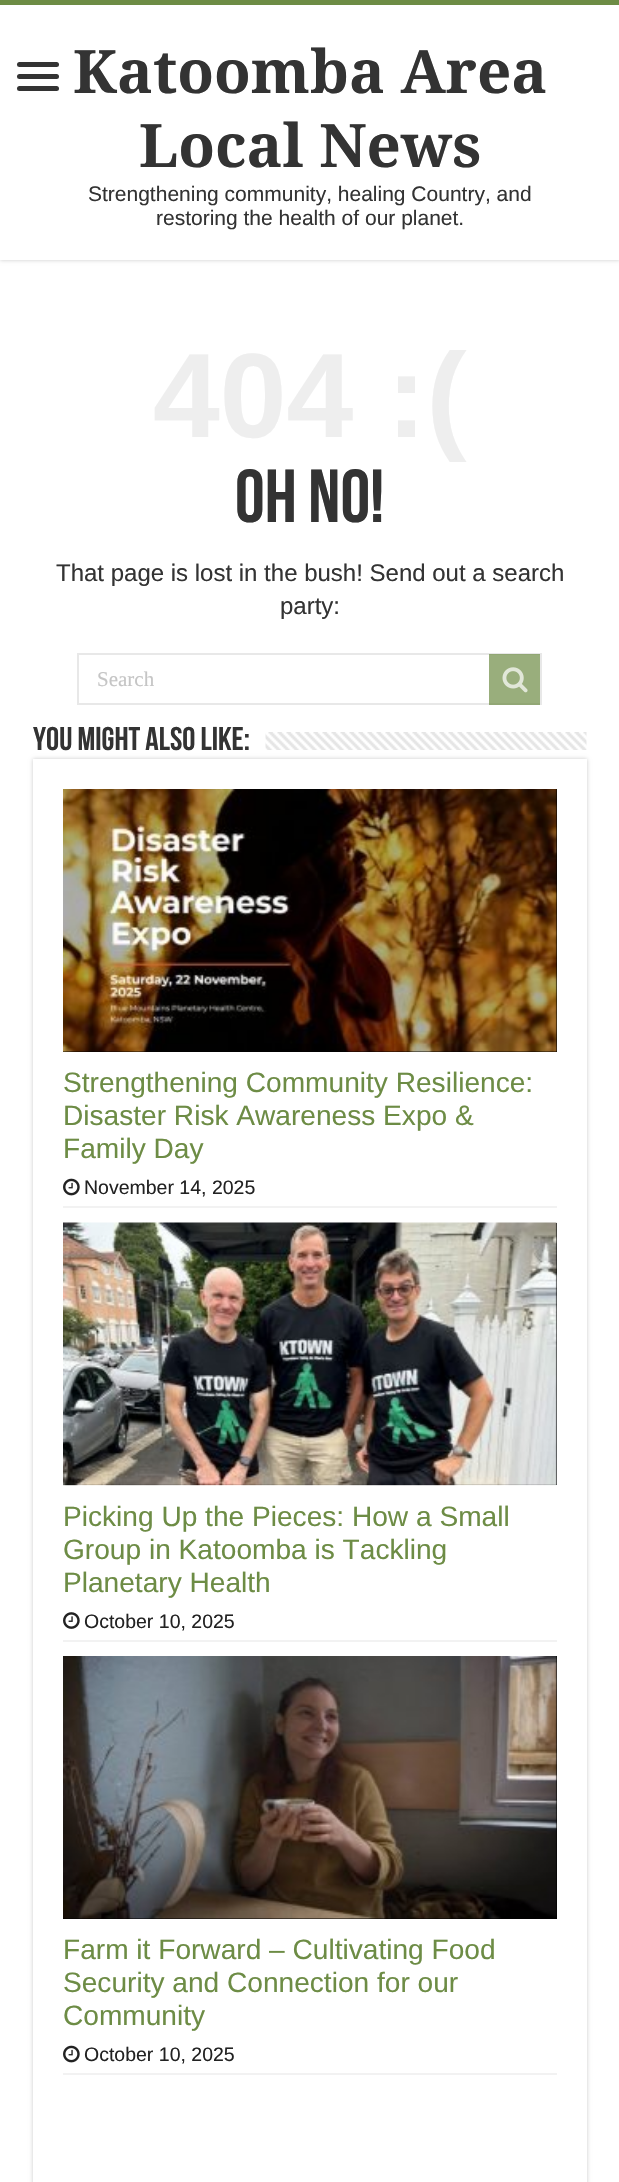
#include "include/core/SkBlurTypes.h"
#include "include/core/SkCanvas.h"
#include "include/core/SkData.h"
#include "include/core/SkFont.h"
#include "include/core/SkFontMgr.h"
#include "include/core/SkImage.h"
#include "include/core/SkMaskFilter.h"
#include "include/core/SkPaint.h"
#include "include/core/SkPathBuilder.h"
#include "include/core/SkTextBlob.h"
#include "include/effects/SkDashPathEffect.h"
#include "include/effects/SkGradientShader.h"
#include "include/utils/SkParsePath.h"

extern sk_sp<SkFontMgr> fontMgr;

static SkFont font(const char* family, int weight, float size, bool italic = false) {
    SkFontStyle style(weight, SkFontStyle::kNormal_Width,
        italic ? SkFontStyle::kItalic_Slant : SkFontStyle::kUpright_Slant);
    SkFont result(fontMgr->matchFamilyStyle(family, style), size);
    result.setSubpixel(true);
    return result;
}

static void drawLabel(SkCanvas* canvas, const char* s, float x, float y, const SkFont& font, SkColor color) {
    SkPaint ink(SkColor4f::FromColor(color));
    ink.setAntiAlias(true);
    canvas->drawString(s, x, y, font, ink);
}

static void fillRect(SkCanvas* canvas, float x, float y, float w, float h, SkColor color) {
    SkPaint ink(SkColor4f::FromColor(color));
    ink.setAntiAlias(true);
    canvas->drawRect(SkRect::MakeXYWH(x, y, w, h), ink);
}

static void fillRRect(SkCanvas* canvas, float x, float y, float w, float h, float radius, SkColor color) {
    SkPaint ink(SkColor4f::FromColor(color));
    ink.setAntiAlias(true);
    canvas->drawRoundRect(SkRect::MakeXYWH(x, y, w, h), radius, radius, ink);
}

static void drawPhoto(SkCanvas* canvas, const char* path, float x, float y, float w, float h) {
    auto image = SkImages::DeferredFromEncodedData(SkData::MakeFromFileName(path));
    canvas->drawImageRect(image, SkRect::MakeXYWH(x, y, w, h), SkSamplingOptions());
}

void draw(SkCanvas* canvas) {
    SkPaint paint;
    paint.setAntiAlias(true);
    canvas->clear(0xFFFFFFFF);
    paint.setColor(0xFFCACACA);
    paint.setMaskFilter(SkMaskFilter::MakeBlur(kNormal_SkBlurStyle, 2));
    canvas->drawRect(SkRect::MakeXYWH(0, 0, 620, 260), paint);
    paint.setMaskFilter(nullptr);
    fillRect(canvas, 0, 5, 619, 255, 0xFFFFFFFF);
    fillRect(canvas, 0, 0, 619, 5, 0xFF6D8C45);
    fillRRect(canvas, 17, 62, 42, 5, 2.5f, 0xFF333333);
    fillRRect(canvas, 17, 74, 42, 5, 2.5f, 0xFF333333);
    fillRRect(canvas, 17, 86, 42, 5, 2.5f, 0xFF333333);
    SkFont font1 = font("Droid Serif", 700, 60);
    drawLabel(canvas, "Katoomba Area", 73, 93, font1, 0xFF333333);
    drawLabel(canvas, "Local News", 139, 167, font1, 0xFF333333);
    SkFont font2 = font("Liberation Sans", 400, 21);
    drawLabel(canvas, "Strengthening community, healing Country, and", 88, 201, font2, 0xFF333333);
    drawLabel(canvas, "restoring the health of our planet.", 156, 225, font2, 0xFF333333);
    SkFont font3 = font("Liberation Sans", 700, 120);
    drawLabel(canvas, "404 :(", 153, 437, font3, 0xFFEEEEEE);
    SkFont font4 = font("Bebas Neue", 700, 75);
    drawLabel(canvas, "Oh no!", 235, 522, font4, 0xFF333333);
    SkFont font5 = font("Liberation Sans", 400, 24);
    drawLabel(canvas, "That page is lost in the bush! Send out a search", 56, 581, font5, 0xFF333333);
    drawLabel(canvas, "party:", 280, 614, font5, 0xFF333333);
    paint.setStroke(true);
    paint.setStrokeWidth(2);
    paint.setColor(0xFFE8E8E8);
    canvas->drawRect(SkRect::MakeXYWH(78, 654, 463, 50), paint);
    SkFont font6 = font("Liberation Serif", 400, 21);
    drawLabel(canvas, "Search", 97, 686, font6, 0xFFC5C5C5);
    fillRect(canvas, 489, 654, 51, 51, 0xB36D8C45);
    drawPhoto(canvas, "assets/img1.png", 502, 667, 26, 26);
    SkFont font7 = font("Bebas Neue", 700, 33);
    drawLabel(canvas, "You might also like:", 33, 750, font7, 0xFF333333);
    drawPhoto(canvas, "assets/img2.png", 265, 732, 322, 18);
    paint.setStroke(false);
    paint.setColor(0xFFCACACA);
    paint.setMaskFilter(SkMaskFilter::MakeBlur(kNormal_SkBlurStyle, 2));
    canvas->drawRect(SkRect::MakeXYWH(33, 759, 554, 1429), paint);
    paint.setMaskFilter(nullptr);
    fillRect(canvas, 33, 759, 554, 1423, 0xFFFFFFFF);
    fillRect(canvas, 63, 789, 494, 263, 0xFF000000);
    drawPhoto(canvas, "assets/img3.png", 63, 789, 494, 263);
    SkFont font8 = font("Liberation Sans", 400, 28.1f);
    drawLabel(canvas, "Strengthening Community Resilience:", 63, 1092, font8, 0xFF6D8C45);
    drawLabel(canvas, "Disaster Risk Awareness Expo &", 63, 1125, font8, 0xFF6D8C45);
    drawLabel(canvas, "Family Day", 63, 1158, font8, 0xFF6D8C45);
    fillRect(canvas, 63, 1206, 494, 2, 0xFFF2F2F2);
    drawPhoto(canvas, "assets/img4.png", 63, 1178, 17, 18);
    SkFont font9 = font("Liberation Sans", 400, 19.5f);
    drawLabel(canvas, "November 14, 2025", 84, 1194, font9, 0xFF222222);
    fillRect(canvas, 63, 1223, 494, 262, 0xFF000000);
    drawPhoto(canvas, "assets/img5.png", 63, 1222, 494, 264);
    drawLabel(canvas, "Picking Up the Pieces: How a Small", 63, 1526, font8, 0xFF6D8C45);
    drawLabel(canvas, "Group in Katoomba is Tackling", 63, 1559, font8, 0xFF6D8C45);
    drawLabel(canvas, "Planetary Health", 63, 1592, font8, 0xFF6D8C45);
    fillRect(canvas, 63, 1640, 494, 2, 0xFFF2F2F2);
    drawPhoto(canvas, "assets/img6.png", 63, 1612, 17, 17);
    drawLabel(canvas, "October 10, 2025", 84, 1628, font9, 0xFF222222);
    fillRect(canvas, 63, 1656, 494, 263, 0xFF000000);
    drawPhoto(canvas, "assets/img7.png", 63, 1656, 494, 263);
    drawLabel(canvas, "Farm it Forward – Cultivating Food", 63, 1959, font8, 0xFF6D8C45);
    drawLabel(canvas, "Security and Connection for our", 63, 1992, font8, 0xFF6D8C45);
    drawLabel(canvas, "Community", 63, 2025, font8, 0xFF6D8C45);
    fillRect(canvas, 63, 2073, 494, 2, 0xFFF2F2F2);
    drawPhoto(canvas, "assets/img4.png", 63, 2045, 17, 18);
    drawLabel(canvas, "October 10, 2025", 84, 2061, font9, 0xFF222222);
}
